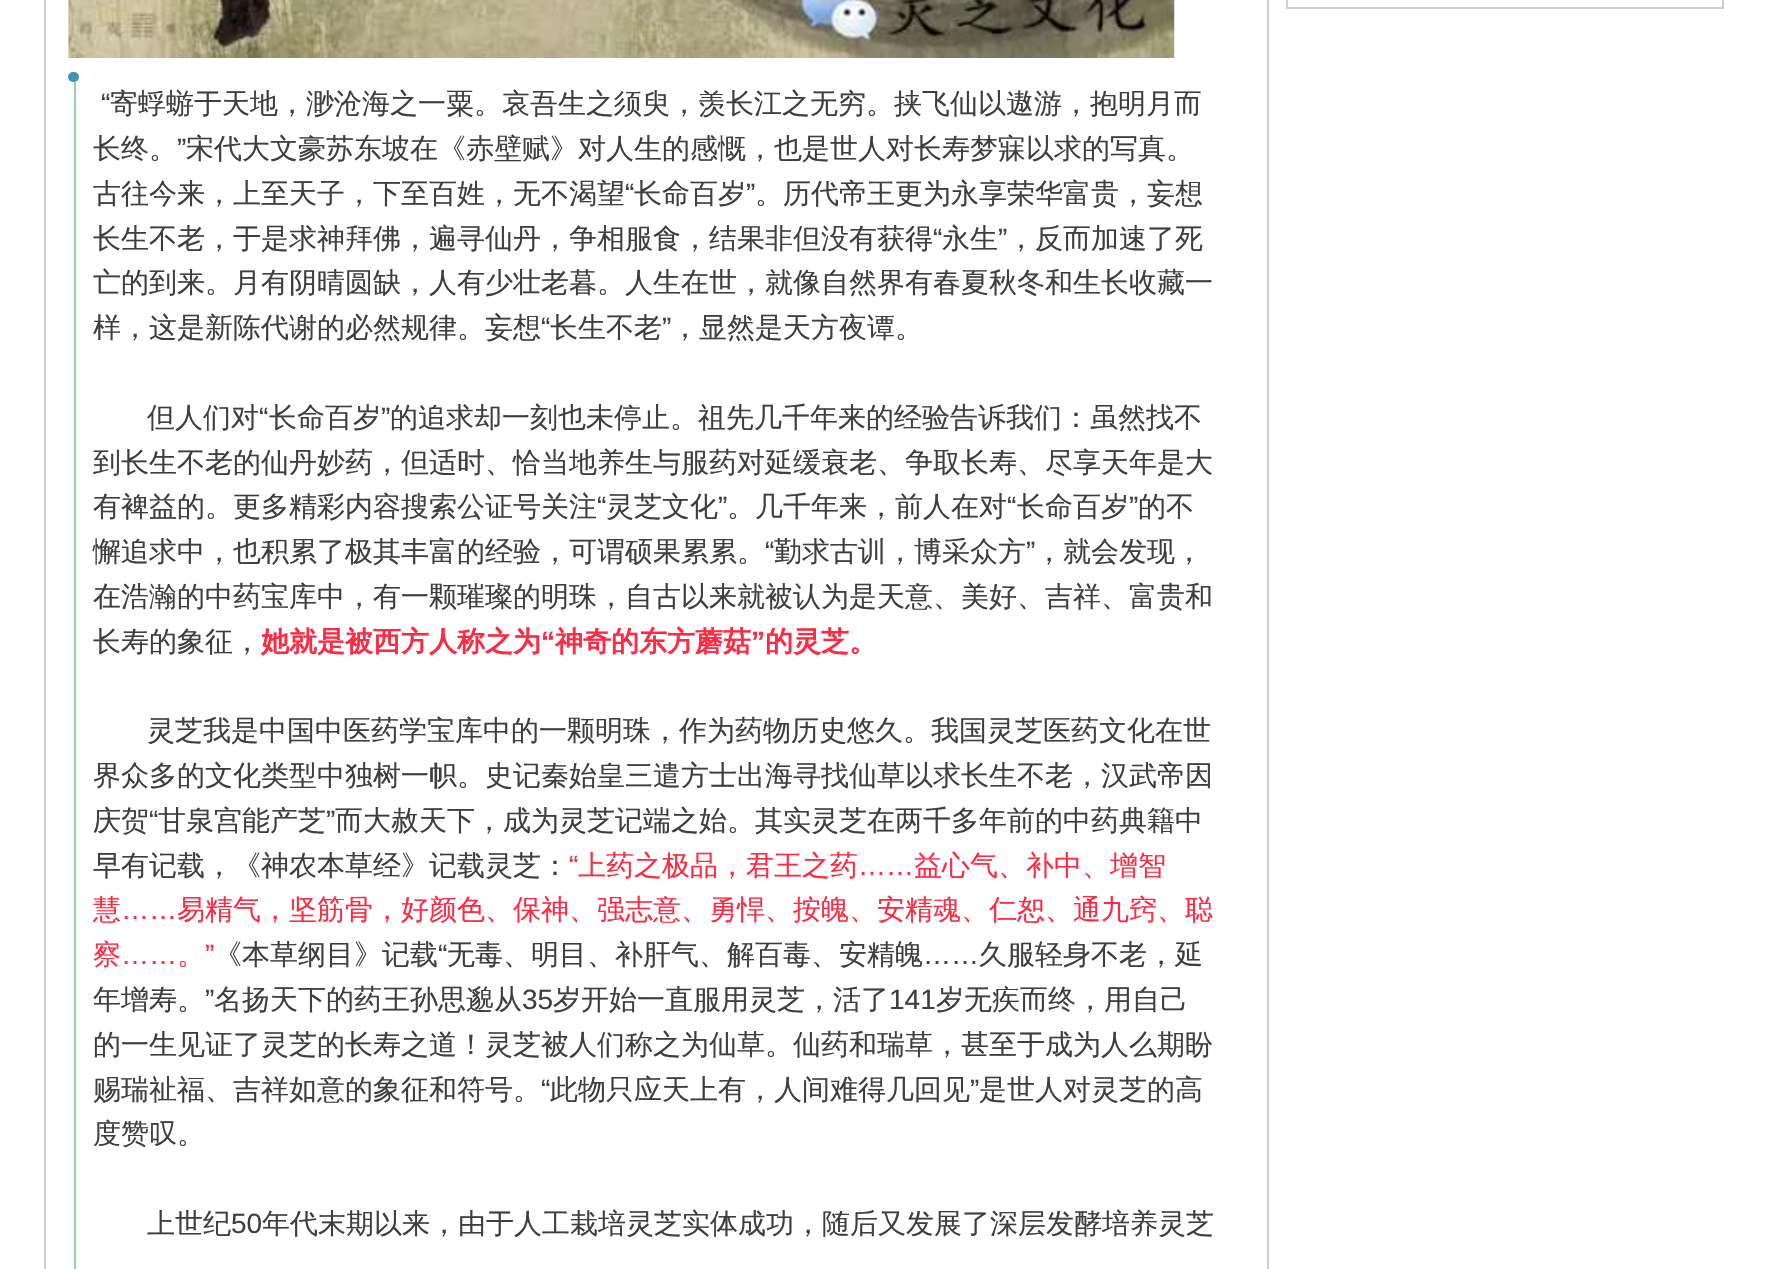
#include "include/core/SkBlurTypes.h"
#include "include/core/SkCanvas.h"
#include "include/core/SkData.h"
#include "include/core/SkFont.h"
#include "include/core/SkFontMgr.h"
#include "include/core/SkImage.h"
#include "include/core/SkMaskFilter.h"
#include "include/core/SkPaint.h"
#include "include/core/SkPathBuilder.h"
#include "include/core/SkTextBlob.h"
#include "include/effects/SkDashPathEffect.h"
#include "include/effects/SkGradientShader.h"
#include "include/utils/SkParsePath.h"

extern sk_sp<SkFontMgr> fontMgr;

static SkFont font(const char* family, int weight, float size, bool italic = false) {
    SkFontStyle style(weight, SkFontStyle::kNormal_Width,
        italic ? SkFontStyle::kItalic_Slant : SkFontStyle::kUpright_Slant);
    SkFont result(fontMgr->matchFamilyStyle(family, style), size);
    result.setSubpixel(true);
    return result;
}

static void drawLabel(SkCanvas* canvas, const char* s, float x, float y, const SkFont& font, SkColor color) {
    SkPaint ink(SkColor4f::FromColor(color));
    ink.setAntiAlias(true);
    canvas->drawString(s, x, y, font, ink);
}

static void fillRect(SkCanvas* canvas, float x, float y, float w, float h, SkColor color) {
    SkPaint ink(SkColor4f::FromColor(color));
    ink.setAntiAlias(true);
    canvas->drawRect(SkRect::MakeXYWH(x, y, w, h), ink);
}

static void fillRRect(SkCanvas* canvas, float x, float y, float w, float h, float radius, SkColor color) {
    SkPaint ink(SkColor4f::FromColor(color));
    ink.setAntiAlias(true);
    canvas->drawRoundRect(SkRect::MakeXYWH(x, y, w, h), radius, radius, ink);
}

static void drawPhoto(SkCanvas* canvas, const char* path, float x, float y, float w, float h) {
    auto image = SkImages::DeferredFromEncodedData(SkData::MakeFromFileName(path));
    canvas->drawImageRect(image, SkRect::MakeXYWH(x, y, w, h), SkSamplingOptions());
}

void draw(SkCanvas* canvas) {
    SkPaint paint;
    paint.setAntiAlias(true);
    canvas->clear(0xFFFFFFFF);
    fillRect(canvas, 1722, 0, 2, 9, 0xFFCECECE);
    fillRect(canvas, 1286, 7, 438, 2, 0xFFCECECE);
    fillRect(canvas, 1286, 0, 2, 9, 0xFFCECECE);
    fillRect(canvas, 1267, 0, 2, 1269, 0xFFCECECE);
    fillRect(canvas, 44, 0, 2, 1269, 0xFFCECECE);
    drawPhoto(canvas, "assets/img1.png", 68, 0, 1107, 58);
    fillRRect(canvas, 68, 72, 11, 10, 5, 0xFF4093B1);
    fillRect(canvas, 74, 82, 2, 1187, 0xFF92D4A4);
    SkFont font1 = font("Liberation Sans", 400, 28);
    drawLabel(canvas, "“", 101, 113, font1, 0xFF3E3E3E);
    SkFont font2 = font("WenQuanYi Zen Hei", 500, 28);
    drawLabel(canvas, "寄蜉蝣于天地，渺沧海之一粟。哀吾生之须臾，羡长江之无穷。挟飞仙以遨游，抱明月而", 110, 113, font2, 0xFF3E3E3E);
    drawLabel(canvas, "长终。", 93, 158, font2, 0xFF3E3E3E);
    drawLabel(canvas, "”", 177, 158, font1, 0xFF3E3E3E);
    drawLabel(canvas, "宋代大文豪苏东坡在《赤壁赋》对人生的感慨，也是世人对长寿梦寐以求的写真。", 186, 158, font2, 0xFF3E3E3E);
    drawLabel(canvas, "古往今来，上至天子，下至百姓，无不渴望", 93, 203, font2, 0xFF3E3E3E);
    drawLabel(canvas, "“", 625, 203, font1, 0xFF3E3E3E);
    drawLabel(canvas, "长命百岁", 634, 203, font2, 0xFF3E3E3E);
    drawLabel(canvas, "”", 746, 203, font1, 0xFF3E3E3E);
    drawLabel(canvas, "。历代帝王更为永享荣华富贵，妄想", 755, 203, font2, 0xFF3E3E3E);
    drawLabel(canvas, "长生不老，于是求神拜佛，遍寻仙丹，争相服食，结果非但没有获得", 93, 248, font2, 0xFF3E3E3E);
    drawLabel(canvas, "“", 933, 248, font1, 0xFF3E3E3E);
    drawLabel(canvas, "永生", 942, 248, font2, 0xFF3E3E3E);
    drawLabel(canvas, "”", 998, 248, font1, 0xFF3E3E3E);
    drawLabel(canvas, "，反而加速了死", 1007, 248, font2, 0xFF3E3E3E);
    drawLabel(canvas, "亡的到来。月有阴晴圆缺，人有少壮老暮。人生在世，就像自然界有春夏秋冬和生长收藏一", 93, 292, font2, 0xFF3E3E3E);
    drawLabel(canvas, "样，这是新陈代谢的必然规律。妄想", 93, 337, font2, 0xFF3E3E3E);
    drawLabel(canvas, "“", 541, 337, font1, 0xFF3E3E3E);
    drawLabel(canvas, "长生不老", 550, 337, font2, 0xFF3E3E3E);
    drawLabel(canvas, "”", 662, 337, font1, 0xFF3E3E3E);
    drawLabel(canvas, "，显然是天方夜谭。", 671, 337, font2, 0xFF3E3E3E);
    drawLabel(canvas, "但人们对", 147, 427, font2, 0xFF3E3E3E);
    drawLabel(canvas, "“", 259, 427, font1, 0xFF3E3E3E);
    drawLabel(canvas, "长命百岁", 269, 427, font2, 0xFF3E3E3E);
    drawLabel(canvas, "”", 381, 427, font1, 0xFF3E3E3E);
    drawLabel(canvas, "的追求却一刻也未停止。祖先几千年来的经验告诉我们：虽然找不", 390, 427, font2, 0xFF3E3E3E);
    drawLabel(canvas, "到长生不老的仙丹妙药，但适时、恰当地养生与服药对延缓衰老、争取长寿、尽享天年是大", 93, 472, font2, 0xFF3E3E3E);
    drawLabel(canvas, "有裨益的。更多精彩内容搜索公证号关注", 93, 516, font2, 0xFF3E3E3E);
    drawLabel(canvas, "“", 597, 516, font1, 0xFF3E3E3E);
    drawLabel(canvas, "灵芝文化", 606, 516, font2, 0xFF3E3E3E);
    drawLabel(canvas, "”", 718, 516, font1, 0xFF3E3E3E);
    drawLabel(canvas, "。几千年来，前人在对", 727, 516, font2, 0xFF3E3E3E);
    drawLabel(canvas, "“", 1007, 516, font1, 0xFF3E3E3E);
    drawLabel(canvas, "长命百岁", 1017, 516, font2, 0xFF3E3E3E);
    drawLabel(canvas, "”", 1129, 516, font1, 0xFF3E3E3E);
    drawLabel(canvas, "的不", 1138, 516, font2, 0xFF3E3E3E);
    drawLabel(canvas, "懈追求中，也积累了极其丰富的经验，可谓硕果累累。", 93, 561, font2, 0xFF3E3E3E);
    drawLabel(canvas, "“", 765, 561, font1, 0xFF3E3E3E);
    drawLabel(canvas, "勤求古训，博采众方", 774, 561, font2, 0xFF3E3E3E);
    drawLabel(canvas, "”", 1026, 561, font1, 0xFF3E3E3E);
    drawLabel(canvas, "，就会发现，", 1035, 561, font2, 0xFF3E3E3E);
    drawLabel(canvas, "在浩瀚的中药宝库中，有一颗璀璨的明珠，自古以来就被认为是天意、美好、吉祥、富贵和", 93, 606, font2, 0xFF3E3E3E);
    drawLabel(canvas, "长寿的象征，", 93, 651, font2, 0xFF3E3E3E);
    SkFont font3 = font("WenQuanYi Zen Hei", 700, 28);
    drawLabel(canvas, "她就是被西方人称之为", 261, 651, font3, 0xFFFF2941);
    SkFont font4 = font("Liberation Sans", 700, 28);
    drawLabel(canvas, "“", 541, 651, font4, 0xFFFF2941);
    drawLabel(canvas, "神奇的东方蘑菇", 555, 651, font3, 0xFFFF2941);
    drawLabel(canvas, "”", 751, 651, font4, 0xFFFF2941);
    drawLabel(canvas, "的灵芝。", 765, 651, font3, 0xFFFF2941);
    drawLabel(canvas, "灵芝我是中国中医药学宝库中的一颗明珠，作为药物历史悠久。我国灵芝医药文化在世", 147, 740, font2, 0xFF3E3E3E);
    drawLabel(canvas, "界众多的文化类型中独树一帜。史记秦始皇三遣方士出海寻找仙草以求长生不老，汉武帝因", 93, 785, font2, 0xFF3E3E3E);
    drawLabel(canvas, "庆贺", 93, 830, font2, 0xFF3E3E3E);
    drawLabel(canvas, "“", 149, 830, font1, 0xFF3E3E3E);
    drawLabel(canvas, "甘泉宫能产芝", 158, 830, font2, 0xFF3E3E3E);
    drawLabel(canvas, "”", 326, 830, font1, 0xFF3E3E3E);
    drawLabel(canvas, "而大赦天下，成为灵芝记端之始。其实灵芝在两千多年前的中药典籍中", 335, 830, font2, 0xFF3E3E3E);
    drawLabel(canvas, "早有记载，《神农本草经》记载灵芝：", 93, 875, font2, 0xFF3E3E3E);
    drawLabel(canvas, "“", 569, 875, font1, 0xFFFF2941);
    drawLabel(canvas, "上药之极品，君王之药", 578, 875, font2, 0xFFFF2941);
    drawLabel(canvas, "益心气、补中、增智", 914, 875, font2, 0xFFFF2941);
    drawLabel(canvas, "……", 858, 875, font1, 0xFFFF2941);
    drawLabel(canvas, "慧", 93, 919, font2, 0xFFFF2941);
    drawLabel(canvas, "……", 121, 919, font1, 0xFFFF2941);
    drawLabel(canvas, "易精气，坚筋骨，好颜色、保神、强志意、勇悍、按魄、安精魂、仁恕、通九窍、聪", 177, 919, font2, 0xFFFF2941);
    drawLabel(canvas, "察", 93, 964, font2, 0xFFFF2941);
    drawLabel(canvas, "”", 205, 964, font1, 0xFFFF2941);
    drawLabel(canvas, "《本草纲目》记载", 214, 964, font2, 0xFF3E3E3E);
    drawLabel(canvas, "“", 438, 964, font1, 0xFF3E3E3E);
    drawLabel(canvas, "无毒、明目、补肝气、解百毒、安精魄", 447, 964, font2, 0xFF3E3E3E);
    drawLabel(canvas, "久服轻身不老，延", 979, 964, font2, 0xFF3E3E3E);
    drawLabel(canvas, "……", 121, 964, font1, 0xFFFF2941);
    drawLabel(canvas, "。", 177, 964, font2, 0xFFFF2941);
    drawLabel(canvas, "……", 923, 964, font1, 0xFF3E3E3E);
    drawLabel(canvas, "年增寿。", 93, 1009, font2, 0xFF3E3E3E);
    drawLabel(canvas, "”", 205, 1009, font1, 0xFF3E3E3E);
    drawLabel(canvas, "名扬天下的药王孙思邈从", 214, 1009, font2, 0xFF3E3E3E);
    drawLabel(canvas, "35", 522, 1009, font1, 0xFF3E3E3E);
    drawLabel(canvas, "岁开始一直服用灵芝，活了", 553, 1009, font2, 0xFF3E3E3E);
    drawLabel(canvas, "141", 889, 1009, font1, 0xFF3E3E3E);
    drawLabel(canvas, "岁无疾而终，用自己", 936, 1009, font2, 0xFF3E3E3E);
    drawLabel(canvas, "的一生见证了灵芝的长寿之道！灵芝被人们称之为仙草。仙药和瑞草，甚至于成为人么期盼", 93, 1054, font2, 0xFF3E3E3E);
    drawLabel(canvas, "赐瑞祉福、吉祥如意的象征和符号。", 93, 1099, font2, 0xFF3E3E3E);
    drawLabel(canvas, "“", 541, 1099, font1, 0xFF3E3E3E);
    drawLabel(canvas, "此物只应天上有，人间难得几回见", 550, 1099, font2, 0xFF3E3E3E);
    drawLabel(canvas, "”", 970, 1099, font1, 0xFF3E3E3E);
    drawLabel(canvas, "是世人对灵芝的高", 979, 1099, font2, 0xFF3E3E3E);
    drawLabel(canvas, "度赞叹。", 93, 1143, font2, 0xFF3E3E3E);
    drawLabel(canvas, "上世纪", 147, 1233, font2, 0xFF3E3E3E);
    drawLabel(canvas, "50", 231, 1233, font1, 0xFF3E3E3E);
    drawLabel(canvas, "年代末期以来，由于人工栽培灵芝实体成功，随后又发展了深层发酵培养灵芝", 262, 1233, font2, 0xFF3E3E3E);
}
